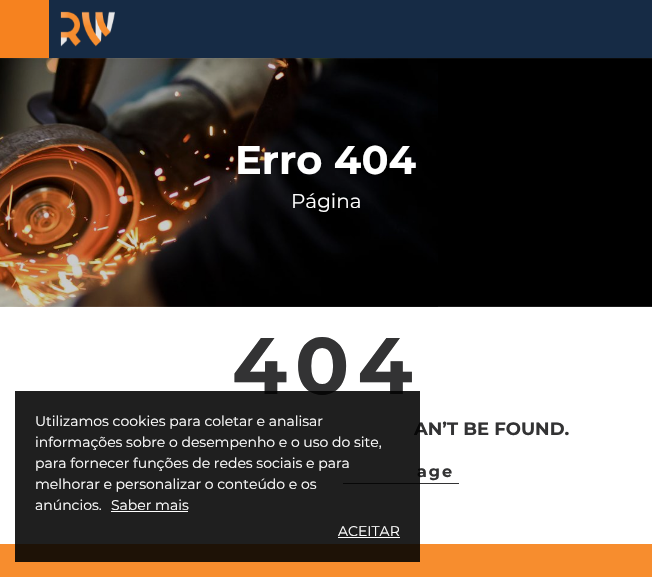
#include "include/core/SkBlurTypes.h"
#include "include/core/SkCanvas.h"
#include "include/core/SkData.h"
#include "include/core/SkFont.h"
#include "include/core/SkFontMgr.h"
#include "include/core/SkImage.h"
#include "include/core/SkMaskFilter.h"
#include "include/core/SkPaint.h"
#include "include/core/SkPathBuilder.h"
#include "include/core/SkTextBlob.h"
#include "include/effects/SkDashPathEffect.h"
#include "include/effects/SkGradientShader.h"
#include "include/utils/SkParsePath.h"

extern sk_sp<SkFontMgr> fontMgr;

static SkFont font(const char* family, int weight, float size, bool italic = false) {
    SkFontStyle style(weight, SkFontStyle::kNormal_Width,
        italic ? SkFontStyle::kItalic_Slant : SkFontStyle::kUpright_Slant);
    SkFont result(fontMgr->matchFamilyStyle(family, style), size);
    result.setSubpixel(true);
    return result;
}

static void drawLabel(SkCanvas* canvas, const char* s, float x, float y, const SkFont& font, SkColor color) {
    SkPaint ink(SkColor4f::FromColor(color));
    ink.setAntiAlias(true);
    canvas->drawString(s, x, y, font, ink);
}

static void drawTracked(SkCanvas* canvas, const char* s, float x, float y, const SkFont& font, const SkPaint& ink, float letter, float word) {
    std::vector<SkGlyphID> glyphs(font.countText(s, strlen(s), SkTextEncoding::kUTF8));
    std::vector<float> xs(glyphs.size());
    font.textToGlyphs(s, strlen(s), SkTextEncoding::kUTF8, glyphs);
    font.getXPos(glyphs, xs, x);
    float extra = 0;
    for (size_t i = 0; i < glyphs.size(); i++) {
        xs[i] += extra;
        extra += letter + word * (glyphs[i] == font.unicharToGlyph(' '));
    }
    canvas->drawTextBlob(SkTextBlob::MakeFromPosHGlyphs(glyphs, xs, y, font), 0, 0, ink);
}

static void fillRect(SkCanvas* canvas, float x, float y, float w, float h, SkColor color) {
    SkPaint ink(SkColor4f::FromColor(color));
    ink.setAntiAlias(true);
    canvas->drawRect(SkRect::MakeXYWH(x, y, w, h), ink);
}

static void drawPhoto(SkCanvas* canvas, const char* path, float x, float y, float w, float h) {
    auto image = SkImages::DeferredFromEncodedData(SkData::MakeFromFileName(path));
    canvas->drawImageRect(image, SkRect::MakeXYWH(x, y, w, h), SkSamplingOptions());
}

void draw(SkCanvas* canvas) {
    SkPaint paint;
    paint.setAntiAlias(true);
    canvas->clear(0xFFFFFFFF);
    SkFont font1 = font("Montserrat", 700, 80);
    paint.setColor(0xFF333334);
    drawTracked(canvas, "404", 232, 394, font1, paint, 8, 0);
    SkFont font2 = font("Montserrat", 700, 18);
    drawLabel(canvas, "AN’T BE FOUND.", 414, 435, font2, 0xFF333334);
    SkFont font3 = font("Montserrat", 700, 16);
    drawTracked(canvas, "age", 417, 477, font3, paint, 2, 0);
    fillRect(canvas, 343, 483, 116, 1, 0xFF333334);
    fillRect(canvas, 0, 544, 652, 33, 0xFFF78D2E);
    fillRect(canvas, 15, 391, 405, 171, 0xE0000000);
    SkFont font4 = font("Montserrat", 400, 14);
    drawLabel(canvas, "Utilizamos cookies para coletar e analisar", 35, 426, font4, 0xFFFFFFFF);
    drawLabel(canvas, "informações sobre o desempenho e o uso do site,", 35, 447, font4, 0xFFFFFFFF);
    drawLabel(canvas, "para fornecer funções de redes sociais e para", 35, 468, font4, 0xFFFFFFFF);
    drawLabel(canvas, "melhorar e personalizar o conteúdo e os", 35, 489, font4, 0xFFFFFFFF);
    drawLabel(canvas, "anúncios.", 35, 510, font4, 0xFFFFFFFF);
    drawLabel(canvas, "Saber mais", 111, 510, font4, 0xFFFFFFFF);
    fillRect(canvas, 111, 511, 77, 1, 0xFFFFFFFF);
    drawLabel(canvas, "ACEITAR", 338, 536, font4, 0xFFFFFFFF);
    fillRect(canvas, 338, 537, 62, 1, 0xFFFFFFFF);
    drawPhoto(canvas, "assets/img2.png", 0, 58, 652, 249);
    paint.setColor(0x12000000);
    paint.setMaskFilter(SkMaskFilter::MakeBlur(kNormal_SkBlurStyle, 3.5f));
    canvas->drawRect(SkRect::MakeXYWH(0, 3, 652, 58), paint);
    paint.setMaskFilter(nullptr);
    fillRect(canvas, 0, 0, 49, 58, 0xFFF6821F);
    fillRect(canvas, 49, 0, 603, 58, 0xFF162B45);
    drawPhoto(canvas, "assets/img1.png", 60, 11, 55, 36);
    SkFont font5 = font("Montserrat", 700, 40);
    drawLabel(canvas, "Erro 404", 235, 174, font5, 0xFFFFFFFF);
    SkFont font6 = font("Montserrat", 400, 20);
    drawLabel(canvas, "Página", 291, 208, font6, 0xFFFFFFFF);
}
